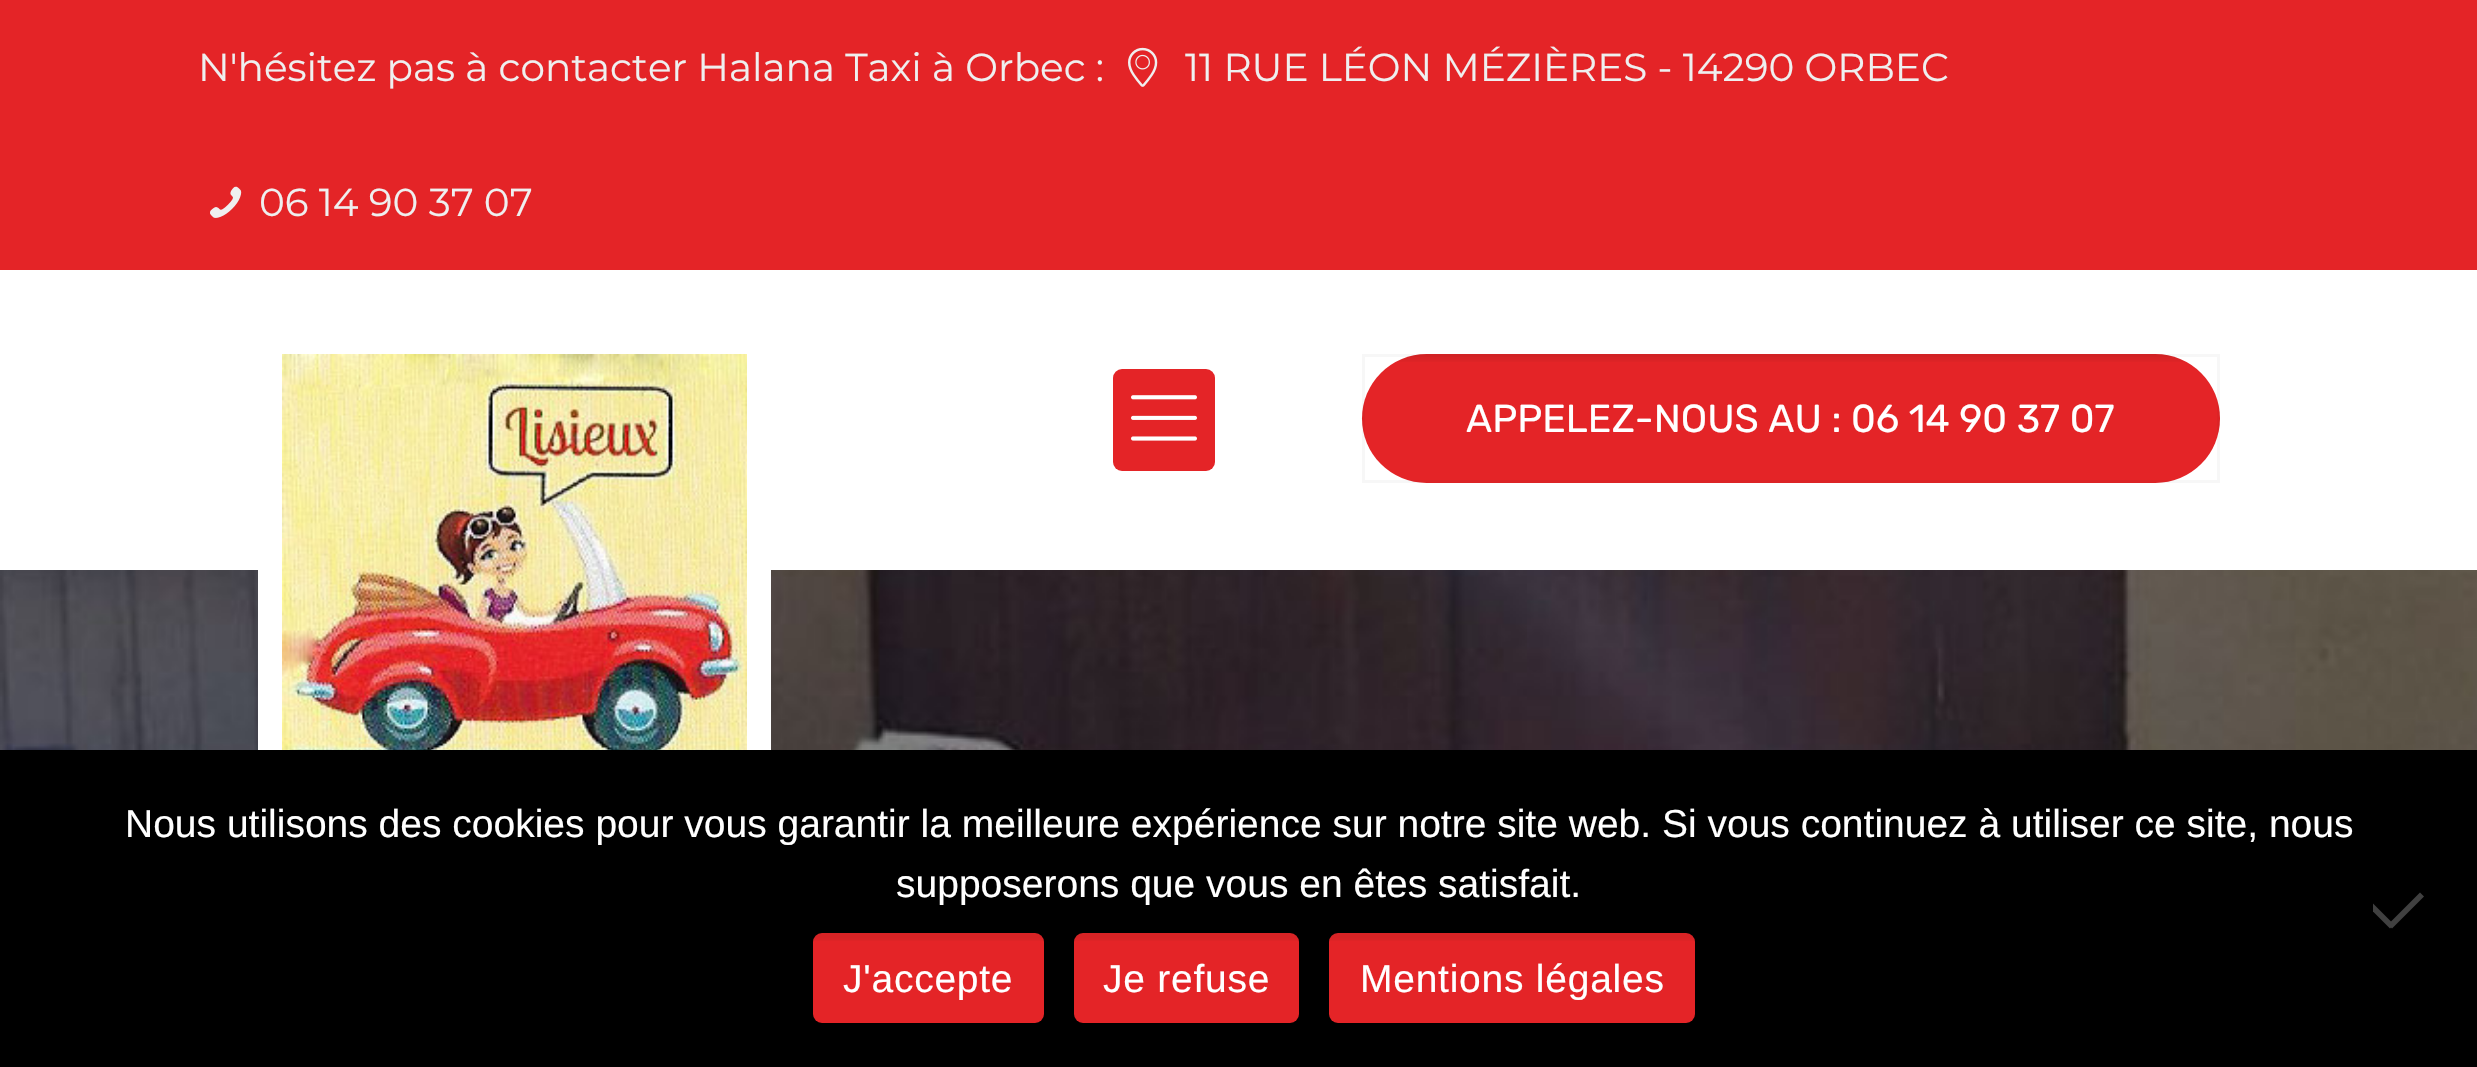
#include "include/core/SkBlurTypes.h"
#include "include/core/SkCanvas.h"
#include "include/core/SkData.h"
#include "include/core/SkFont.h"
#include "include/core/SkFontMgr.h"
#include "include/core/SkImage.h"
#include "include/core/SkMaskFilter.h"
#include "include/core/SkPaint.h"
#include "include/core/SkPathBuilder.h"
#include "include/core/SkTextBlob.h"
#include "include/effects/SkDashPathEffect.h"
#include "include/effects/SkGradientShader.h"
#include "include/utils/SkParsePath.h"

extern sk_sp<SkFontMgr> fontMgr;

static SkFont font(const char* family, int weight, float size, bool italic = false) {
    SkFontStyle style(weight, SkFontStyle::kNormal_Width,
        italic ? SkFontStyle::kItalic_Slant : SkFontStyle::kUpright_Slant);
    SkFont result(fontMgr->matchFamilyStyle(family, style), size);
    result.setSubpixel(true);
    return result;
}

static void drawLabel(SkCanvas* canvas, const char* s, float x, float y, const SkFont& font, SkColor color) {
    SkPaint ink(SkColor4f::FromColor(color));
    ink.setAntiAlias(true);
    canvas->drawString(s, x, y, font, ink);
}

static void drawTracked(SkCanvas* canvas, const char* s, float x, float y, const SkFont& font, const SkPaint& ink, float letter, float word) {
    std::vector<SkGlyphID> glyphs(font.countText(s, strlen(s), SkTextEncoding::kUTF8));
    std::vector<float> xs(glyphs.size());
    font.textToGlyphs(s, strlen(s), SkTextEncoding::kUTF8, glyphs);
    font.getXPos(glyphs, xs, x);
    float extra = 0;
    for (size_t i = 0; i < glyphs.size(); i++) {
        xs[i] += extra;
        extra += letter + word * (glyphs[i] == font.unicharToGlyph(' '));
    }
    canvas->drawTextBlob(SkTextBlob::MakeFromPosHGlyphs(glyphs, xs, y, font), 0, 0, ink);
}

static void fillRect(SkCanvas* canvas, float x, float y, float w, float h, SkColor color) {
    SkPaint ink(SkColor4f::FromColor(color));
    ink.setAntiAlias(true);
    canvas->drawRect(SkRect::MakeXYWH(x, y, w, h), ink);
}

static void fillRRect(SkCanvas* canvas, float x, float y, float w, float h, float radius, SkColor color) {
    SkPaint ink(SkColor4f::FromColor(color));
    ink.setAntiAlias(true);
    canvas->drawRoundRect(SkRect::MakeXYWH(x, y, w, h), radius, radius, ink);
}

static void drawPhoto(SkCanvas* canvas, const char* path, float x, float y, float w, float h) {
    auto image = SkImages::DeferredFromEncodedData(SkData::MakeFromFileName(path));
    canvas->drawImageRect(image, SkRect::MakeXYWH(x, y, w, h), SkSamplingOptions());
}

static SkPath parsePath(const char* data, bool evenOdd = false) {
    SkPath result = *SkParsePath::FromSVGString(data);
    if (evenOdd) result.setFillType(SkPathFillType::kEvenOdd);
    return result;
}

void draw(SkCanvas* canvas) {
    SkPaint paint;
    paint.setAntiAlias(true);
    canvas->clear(0xFFFFFFFF);
    fillRect(canvas, 0, 0, 2477, 270, 0xFFE42427);
    SkFont font1 = font("Montserrat", 400, 39);
    drawLabel(canvas, "N'hésitez pas à contacter Halana Taxi à Orbec :", 198, 81, font1, 0xFFEFEFEF);
    drawPhoto(canvas, "assets/img1.png", 1128, 47, 30, 40);
    drawLabel(canvas, "11 RUE LÉON MÉZIÈRES - 14290 ORBEC", 1185, 81, font1, 0xFFEFEFEF);
    drawPhoto(canvas, "assets/img2.png", 210, 186, 32, 32);
    drawLabel(canvas, "06 14 90 37 07", 259, 216, font1, 0xFFEFEFEF);
    drawPhoto(canvas, "assets/img6.png", 0, 570, 2477, 180);
    fillRect(canvas, 258, 570, 513, 180, 0xFFFFFFFF);
    drawPhoto(canvas, "assets/img3.png", 282, 354, 465, 396);
    fillRRect(canvas, 1113, 369, 102, 102, 9, 0xFFE42427);
    drawPhoto(canvas, "assets/img4.png", 1131, 395, 66, 46);
    fillRRect(canvas, 1362, 354, 858, 129, 64.5f, 0xFFE42427);
    drawPhoto(canvas, "assets/img5.png", 1397, 354, 788, 8);
    paint.setStroke(true);
    paint.setStrokeWidth(3);
    paint.setColor(0x08000000);
    canvas->drawRect(SkRect::MakeXYWH(1363.5f, 355.5f, 855, 126), paint);
    SkFont font2 = font("Rubik", 400, 39);
    drawLabel(canvas, "APPELEZ-NOUS AU : 06 14 90 37 07", 1466, 432, font2, 0xFFFFFFFF);
    fillRect(canvas, 0, 750, 2477, 317, 0xFF000000);
    SkFont font3 = font("Liberation Sans", 400, 39);
    drawLabel(canvas, "Nous utilisons des cookies pour vous garantir la meilleure expérience sur notre site web. Si vous continuez à utiliser ce site, nous", 125, 837, font3, 0xFFFFFFFF);
    drawLabel(canvas, "supposerons que vous en êtes satisfait.", 896, 897, font3, 0xFFFFFFFF);
    paint.setStroke(false);
    paint.setColor(0xFF404040);
    canvas->drawPath(parsePath("M2420 892.5L2424 896.5L2392 928.5L2388 924.5Z"), paint);
    canvas->drawPath(parsePath("M2373 911.5V903.5L2394 924.5L2390 928.5Z"), paint);
    fillRRect(canvas, 813, 933, 231, 90, 9, 0xFFE42427);
    drawPhoto(canvas, "assets/img7.png", 814, 933, 229, 8);
    paint.setColor(0xFFFFFFFF);
    drawTracked(canvas, "J'accepte", 843, 992, font3, paint, 0.75f, 0);
    fillRRect(canvas, 1074, 933, 225, 90, 9, 0xFFE42427);
    drawPhoto(canvas, "assets/img8.png", 1075, 933, 223, 8);
    drawTracked(canvas, "Je refuse", 1103, 992, font3, paint, 0.75f, 0);
    fillRRect(canvas, 1329, 933, 366, 90, 9, 0xFFE42427);
    drawPhoto(canvas, "assets/img9.png", 1330, 933, 364, 8);
    drawTracked(canvas, "Mentions légales", 1360, 992, font3, paint, 0.75f, 0);
}
